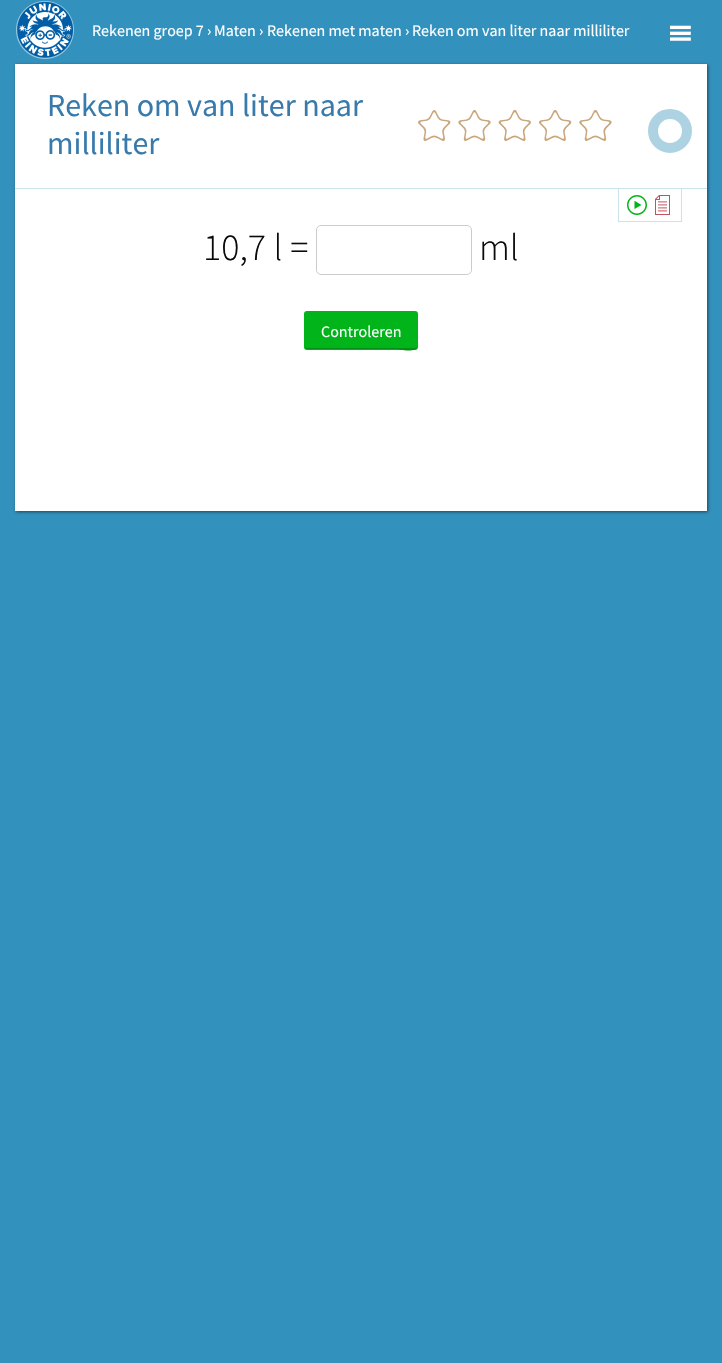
#include "include/core/SkBlurTypes.h"
#include "include/core/SkCanvas.h"
#include "include/core/SkData.h"
#include "include/core/SkFont.h"
#include "include/core/SkFontMgr.h"
#include "include/core/SkImage.h"
#include "include/core/SkMaskFilter.h"
#include "include/core/SkPaint.h"
#include "include/core/SkPathBuilder.h"
#include "include/core/SkTextBlob.h"
#include "include/effects/SkDashPathEffect.h"
#include "include/effects/SkGradientShader.h"
#include "include/utils/SkParsePath.h"

extern sk_sp<SkFontMgr> fontMgr;

static SkFont font(const char* family, int weight, float size, bool italic = false) {
    SkFontStyle style(weight, SkFontStyle::kNormal_Width,
        italic ? SkFontStyle::kItalic_Slant : SkFontStyle::kUpright_Slant);
    SkFont result(fontMgr->matchFamilyStyle(family, style), size);
    result.setSubpixel(true);
    return result;
}

static void drawLabel(SkCanvas* canvas, const char* s, float x, float y, const SkFont& font, SkColor color) {
    SkPaint ink(SkColor4f::FromColor(color));
    ink.setAntiAlias(true);
    canvas->drawString(s, x, y, font, ink);
}

static void fillRect(SkCanvas* canvas, float x, float y, float w, float h, SkColor color) {
    SkPaint ink(SkColor4f::FromColor(color));
    ink.setAntiAlias(true);
    canvas->drawRect(SkRect::MakeXYWH(x, y, w, h), ink);
}

static void fillRRect(SkCanvas* canvas, float x, float y, float w, float h, float radius, SkColor color) {
    SkPaint ink(SkColor4f::FromColor(color));
    ink.setAntiAlias(true);
    canvas->drawRoundRect(SkRect::MakeXYWH(x, y, w, h), radius, radius, ink);
}

static void drawPhoto(SkCanvas* canvas, const char* path, float x, float y, float w, float h) {
    auto image = SkImages::DeferredFromEncodedData(SkData::MakeFromFileName(path));
    canvas->drawImageRect(image, SkRect::MakeXYWH(x, y, w, h), SkSamplingOptions());
}

static SkPath parsePath(const char* data, bool evenOdd = false) {
    SkPath result = *SkParsePath::FromSVGString(data);
    if (evenOdd) result.setFillType(SkPathFillType::kEvenOdd);
    return result;
}

void draw(SkCanvas* canvas) {
    SkPaint paint;
    paint.setAntiAlias(true);
    canvas->clear(0xFF3391BD);
    drawPhoto(canvas, "assets/img1.png", 16, 1, 58, 58);
    SkFont font1 = font("Source Sans Pro", 400, 16);
    drawLabel(canvas, "Rekenen groep 7", 92, 36, font1, 0xFFFFFFFF);
    drawLabel(canvas, "›", 207, 36, font1, 0xFFFFFFFF);
    drawLabel(canvas, "Maten", 214, 36, font1, 0xFFFFFFFF);
    drawLabel(canvas, "›", 259, 36, font1, 0xFFFFFFFF);
    drawLabel(canvas, "Rekenen met maten", 267, 36, font1, 0xFFFFFFFF);
    drawLabel(canvas, "›", 405, 36, font1, 0xFFFFFFFF);
    drawLabel(canvas, "Reken om van liter naar milliliter", 412, 36, font1, 0xFFFFFFFF);
    drawPhoto(canvas, "assets/img2.png", 670, 25, 21, 16);
    paint.setColor(0x80000000);
    paint.setMaskFilter(SkMaskFilter::MakeBlur(kNormal_SkBlurStyle, 1.5f));
    canvas->drawRect(SkRect::MakeXYWH(16, 65, 692, 447), paint);
    paint.setMaskFilter(nullptr);
    fillRect(canvas, 15, 64, 692, 447, 0xFFFFFFFF);
    fillRect(canvas, 15, 188, 692, 1, 0xFFC9E2EE);
    SkFont font2 = font("Source Sans Pro", 400, 32);
    drawLabel(canvas, "Reken om van liter naar", 47, 116, font2, 0xFF377AAB);
    drawLabel(canvas, "milliliter", 47, 154, font2, 0xFF377AAB);
    drawPhoto(canvas, "assets/img3.png", 418, 110, 194, 31);
    paint.setStroke(true);
    paint.setStrokeWidth(10);
    paint.setColor(0xFFADD3E3);
    canvas->drawPath(parsePath("M653 131C653 121.5 660.5 114 670 114C679.5 114 687 121.5 687 131C687 140.5 679.5 148 670 148C660.5 148 653 140.5 653 131Z"), paint);
    fillRect(canvas, 681, 189, 1, 33, 0xFFC9E2EE);
    fillRect(canvas, 618, 221, 64, 1, 0xFFC9E2EE);
    fillRect(canvas, 618, 189, 1, 33, 0xFFC9E2EE);
    drawPhoto(canvas, "assets/img4.png", 627, 195, 20, 20);
    drawPhoto(canvas, "assets/img5.png", 655, 195, 15, 20);
    SkFont font3 = font("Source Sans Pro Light", 300, 38);
    drawLabel(canvas, "10,7 l =", 203, 260, font3, 0xFF0A0A0A);
    paint.setStrokeWidth(1);
    paint.setColor(0xFFCCCCCC);
    canvas->drawRoundRect(SkRect::MakeXYWH(316.5f, 225.5f, 155, 49), 4.5f, 4.5f, paint);
    drawLabel(canvas, "ml", 479, 260, font3, 0xFF0A0A0A);
    fillRRect(canvas, 304, 311, 114, 39, 3, 0xFF00B419);
    paint.setStroke(false);
    paint.setColor(0xFF009014);
    canvas->drawPath(parsePath("M305 346C305 347 305 349 307 349H397C397 349 417 354 417 346C417 347 416 348 415 348H307C306 348 305 347 305 346Z"), paint);
    drawLabel(canvas, "Controleren", 321, 337, font1, 0xFFFFFFFF);
}
